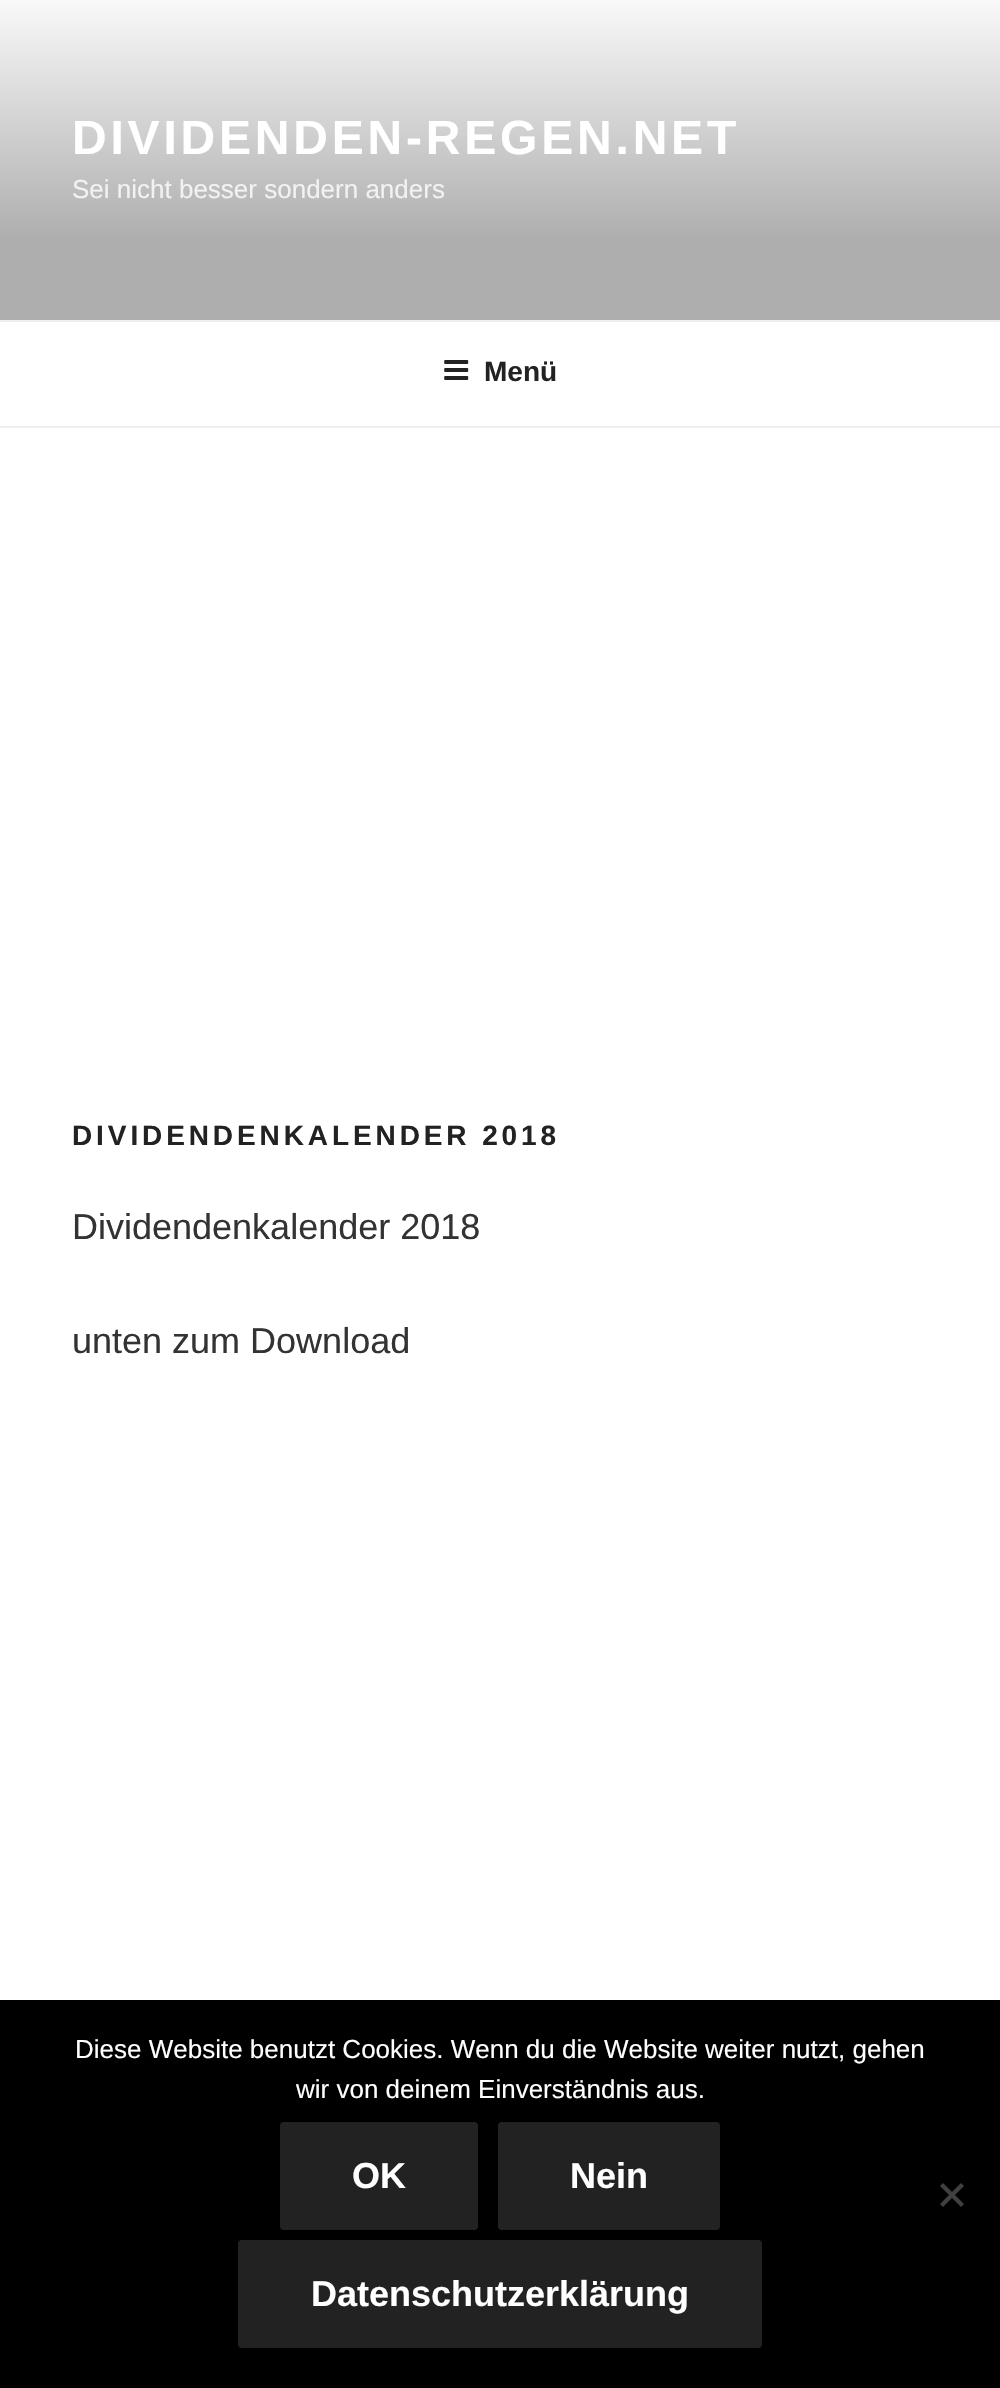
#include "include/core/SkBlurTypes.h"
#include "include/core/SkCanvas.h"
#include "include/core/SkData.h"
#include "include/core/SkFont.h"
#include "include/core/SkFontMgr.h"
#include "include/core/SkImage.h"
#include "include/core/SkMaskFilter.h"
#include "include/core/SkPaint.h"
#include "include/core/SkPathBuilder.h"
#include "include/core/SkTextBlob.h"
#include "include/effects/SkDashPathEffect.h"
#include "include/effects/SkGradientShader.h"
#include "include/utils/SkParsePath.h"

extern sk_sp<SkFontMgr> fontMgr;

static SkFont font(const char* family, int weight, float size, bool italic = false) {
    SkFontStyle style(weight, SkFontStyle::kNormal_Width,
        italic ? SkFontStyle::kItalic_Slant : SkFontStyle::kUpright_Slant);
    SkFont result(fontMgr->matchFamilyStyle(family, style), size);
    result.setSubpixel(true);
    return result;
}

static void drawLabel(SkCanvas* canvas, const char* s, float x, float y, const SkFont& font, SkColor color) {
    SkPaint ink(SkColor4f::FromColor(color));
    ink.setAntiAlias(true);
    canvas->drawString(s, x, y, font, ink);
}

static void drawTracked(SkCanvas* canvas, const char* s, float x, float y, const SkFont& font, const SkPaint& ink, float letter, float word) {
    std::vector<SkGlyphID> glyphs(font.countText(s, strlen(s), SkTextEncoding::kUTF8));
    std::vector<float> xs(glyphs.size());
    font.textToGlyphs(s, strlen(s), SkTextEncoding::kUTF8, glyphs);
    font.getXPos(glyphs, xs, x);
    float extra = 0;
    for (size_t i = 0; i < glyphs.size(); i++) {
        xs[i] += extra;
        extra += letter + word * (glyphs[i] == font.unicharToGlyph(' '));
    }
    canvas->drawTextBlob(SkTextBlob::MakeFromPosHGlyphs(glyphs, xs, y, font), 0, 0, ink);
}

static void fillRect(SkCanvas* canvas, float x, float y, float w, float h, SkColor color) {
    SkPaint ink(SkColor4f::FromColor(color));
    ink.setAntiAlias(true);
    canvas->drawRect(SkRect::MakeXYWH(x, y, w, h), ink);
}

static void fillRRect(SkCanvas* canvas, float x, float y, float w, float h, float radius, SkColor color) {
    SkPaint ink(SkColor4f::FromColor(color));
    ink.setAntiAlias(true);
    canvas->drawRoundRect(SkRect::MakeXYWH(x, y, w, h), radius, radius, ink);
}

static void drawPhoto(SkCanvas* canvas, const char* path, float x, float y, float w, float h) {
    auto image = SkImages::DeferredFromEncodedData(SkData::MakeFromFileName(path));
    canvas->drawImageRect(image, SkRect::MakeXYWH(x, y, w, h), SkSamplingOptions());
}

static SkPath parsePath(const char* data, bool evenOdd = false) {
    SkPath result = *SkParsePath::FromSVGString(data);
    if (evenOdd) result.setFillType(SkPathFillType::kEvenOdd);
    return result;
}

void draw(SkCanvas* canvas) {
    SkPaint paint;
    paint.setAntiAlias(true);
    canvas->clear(0xFFFFFFFF);
    {
        const SkColor colors[] = {0xFFF9F9F9, 0xFFAEAEAE, 0xFFAEAEAE};
        const float stops[] = {0, 0.75f, 1};
        const SkPoint ends[] = {{500, 0}, {500, 320}};
        paint.setShader(SkGradientShader::MakeLinear(ends, colors, stops, 3, SkTileMode::kClamp));
        paint.setAlpha(255);
    }
    canvas->drawRect(SkRect::MakeXYWH(0, 0, 1000, 320), paint);
    SkFont font1 = font("Liberation Sans", 700, 48);
    paint.setShader(nullptr);
    paint.setColor(0xFFFFFFFF);
    drawTracked(canvas, "DIVIDENDEN-REGEN.NET", 72, 154, font1, paint, 3.8f, 0);
    SkFont font2 = font("Liberation Sans", 400, 26);
    drawLabel(canvas, "Sei nicht besser sondern anders", 72, 198, font2, 0xFFF2F2F2);
    fillRect(canvas, 0, 320, 1000, 2, 0xFFEEEEEE);
    fillRect(canvas, 0, 426, 1000, 2, 0xFFEEEEEE);
    drawPhoto(canvas, "assets/img1.png", 444, 360, 25, 20);
    SkFont font3 = font("Liberation Sans", 700, 28);
    drawLabel(canvas, "Menü", 484, 381, font3, 0xFF222222);
    paint.setColor(0xFF222222);
    drawTracked(canvas, "DIVIDENDENKALENDER 2018", 72, 1145, font3, paint, 3.9f, 0);
    SkFont font4 = font("Liberation Sans", 400, 36);
    drawLabel(canvas, "Dividendenkalender 2018", 72, 1239, font4, 0xFF333333);
    drawLabel(canvas, "unten zum Download", 72, 1353, font4, 0xFF333333);
    fillRect(canvas, 0, 2000, 1000, 388, 0xFF000000);
    drawLabel(canvas, "Diese Website benutzt Cookies. Wenn du die Website weiter nutzt, gehen", 75, 2058, font2, 0xFFFFFFFF);
    drawLabel(canvas, "wir von deinem Einverständnis aus.", 296, 2098, font2, 0xFFFFFFFF);
    fillRRect(canvas, 280, 2122, 198, 108, 4, 0xFF222222);
    SkFont font5 = font("Liberation Sans", 700, 36);
    drawLabel(canvas, "OK", 352, 2188, font5, 0xFFFFFFFF);
    fillRRect(canvas, 498, 2122, 222, 108, 4, 0xFF222222);
    drawLabel(canvas, "Nein", 570, 2188, font5, 0xFFFFFFFF);
    fillRRect(canvas, 238, 2240, 524, 108, 4, 0xFF222222);
    drawLabel(canvas, "Datenschutzerklärung", 311, 2306, font5, 0xFFFFFFFF);
    paint.setColor(0xFF404040);
    canvas->drawPath(parsePath("M961 2183L964 2186L943 2207L940 2204Z"), paint);
    canvas->drawPath(parsePath("M940 2186L943 2183L964 2204L961 2207Z"), paint);
}
